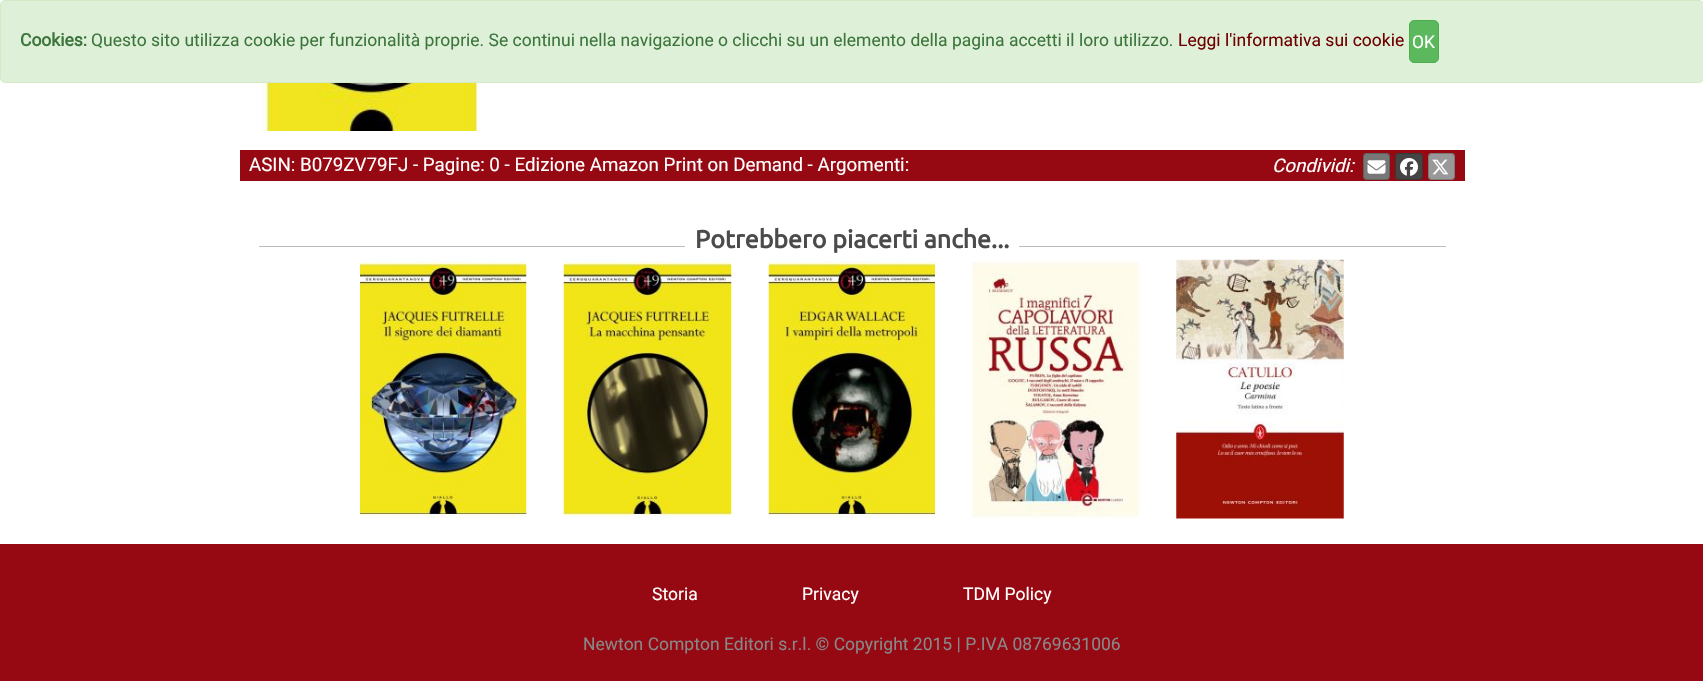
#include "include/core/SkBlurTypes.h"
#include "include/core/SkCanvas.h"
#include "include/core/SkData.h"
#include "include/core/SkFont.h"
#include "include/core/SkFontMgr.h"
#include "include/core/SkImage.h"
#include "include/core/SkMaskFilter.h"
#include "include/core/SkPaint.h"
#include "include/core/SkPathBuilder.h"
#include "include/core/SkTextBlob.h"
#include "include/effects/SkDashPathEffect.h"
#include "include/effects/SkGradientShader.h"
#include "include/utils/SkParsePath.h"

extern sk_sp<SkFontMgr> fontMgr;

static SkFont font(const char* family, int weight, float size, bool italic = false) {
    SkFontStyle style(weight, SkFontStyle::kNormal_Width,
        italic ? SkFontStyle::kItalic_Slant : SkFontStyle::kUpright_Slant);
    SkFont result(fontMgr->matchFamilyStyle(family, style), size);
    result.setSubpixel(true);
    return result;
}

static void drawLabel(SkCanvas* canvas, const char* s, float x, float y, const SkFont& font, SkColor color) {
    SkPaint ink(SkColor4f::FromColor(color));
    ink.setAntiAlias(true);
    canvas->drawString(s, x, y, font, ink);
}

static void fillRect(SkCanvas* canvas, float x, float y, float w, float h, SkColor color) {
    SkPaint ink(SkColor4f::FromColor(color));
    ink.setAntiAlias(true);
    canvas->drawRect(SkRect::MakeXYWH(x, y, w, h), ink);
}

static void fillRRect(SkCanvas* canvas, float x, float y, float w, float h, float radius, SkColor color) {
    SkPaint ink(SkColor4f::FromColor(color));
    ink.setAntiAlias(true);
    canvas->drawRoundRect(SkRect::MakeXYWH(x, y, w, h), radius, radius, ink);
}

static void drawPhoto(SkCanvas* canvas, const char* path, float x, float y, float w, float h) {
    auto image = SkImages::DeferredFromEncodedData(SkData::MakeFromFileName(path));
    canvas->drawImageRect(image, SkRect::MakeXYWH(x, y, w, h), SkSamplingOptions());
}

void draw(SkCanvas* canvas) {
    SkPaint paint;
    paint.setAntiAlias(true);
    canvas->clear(0xFFFFFFFF);
    paint.setColor(0xFFDFF0D8);
    canvas->drawRoundRect(SkRect::MakeXYWH(0.5f, 0.5f, 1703, 82), 4.5f, 4.5f, paint);
    paint.setStroke(true);
    paint.setStrokeWidth(1);
    paint.setColor(0xFFD6E9C6);
    canvas->drawRoundRect(SkRect::MakeXYWH(0.5f, 0.5f, 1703, 82), 4.5f, 4.5f, paint);
    SkFont font1 = font("Roboto", 700, 17.5f);
    drawLabel(canvas, "Cookies:", 20, 46, font1, 0xFF3C763D);
    SkFont font2 = font("Roboto", 400, 17.5f);
    drawLabel(canvas, "Questo sito utilizza cookie per funzionalità proprie. Se continui nella navigazione o clicchi su un elemento della pagina accetti il loro utilizzo.", 91, 46, font2, 0xFF3C763D);
    drawLabel(canvas, "Leggi l'informativa sui cookie", 1178, 46, font2, 0xFF6E0000);
    paint.setStroke(false);
    paint.setColor(0xFF5CB85C);
    canvas->drawRoundRect(SkRect::MakeXYWH(1409.5f, 20.5f, 29, 42), 4.5f, 4.5f, paint);
    paint.setStroke(true);
    paint.setColor(0xFF4CAE4C);
    canvas->drawRoundRect(SkRect::MakeXYWH(1409.5f, 20.5f, 29, 42), 4.5f, 4.5f, paint);
    drawLabel(canvas, "OK", 1412, 48, font2, 0xFFFFFFFF);
    drawPhoto(canvas, "assets/img1.png", 261, 83, 218, 48);
    fillRect(canvas, 240, 150, 1225, 31, 0xFF960812);
    SkFont font3 = font("Roboto", 400, 18.75f);
    drawLabel(canvas, "ASIN: B079ZV79FJ - Pagine: 0 - Edizione Amazon Print on Demand - Argomenti:", 249, 171, font3, 0xFFFFFFFF);
    SkFont font4 = font("Roboto", 400, 18.75f, true);
    drawLabel(canvas, "Condividi:", 1272, 172, font4, 0xFFFFFFFF);
    fillRRect(canvas, 1363, 153, 27, 27, 4, 0xFF777777);
    paint.setColor(0x33000000);
    canvas->drawRoundRect(SkRect::MakeXYWH(1363.5f, 153.5f, 26, 26), 3.5f, 3.5f, paint);
    drawPhoto(canvas, "assets/img2.png", 1367, 160, 19, 14);
    fillRRect(canvas, 1395, 153, 28, 27, 4, 0xFF444444);
    canvas->drawRoundRect(SkRect::MakeXYWH(1395.5f, 153.5f, 27, 26), 3.5f, 3.5f, paint);
    drawPhoto(canvas, "assets/img3.png", 1400, 158, 18, 18);
    fillRRect(canvas, 1428, 153, 27, 27, 4, 0xFF999999);
    canvas->drawRoundRect(SkRect::MakeXYWH(1428.5f, 153.5f, 26, 26), 3.5f, 3.5f, paint);
    drawPhoto(canvas, "assets/img4.png", 1432, 159, 17, 16);
    fillRect(canvas, 259, 246, 1187, 1, 0xFFBBBBBB);
    fillRect(canvas, 685, 246, 334, 1, 0xFFFFFFFF);
    SkFont font5 = font("Ubuntu", 700, 25);
    drawLabel(canvas, "Potrebbero piacerti anche...", 695, 248, font5, 0xFF4B4B4B);
    drawPhoto(canvas, "assets/img5.png", 360, 259, 167, 260);
    drawPhoto(canvas, "assets/img6.png", 563, 260, 169, 259);
    drawPhoto(canvas, "assets/img7.png", 768, 259, 167, 260);
    drawPhoto(canvas, "assets/img8.png", 972, 260, 167, 258);
    drawPhoto(canvas, "assets/img9.png", 1176, 259, 168, 260);
    fillRect(canvas, 0, 544, 1703, 137, 0xFF960812);
    drawLabel(canvas, "Storia", 652, 600, font2, 0xFFFFFFFF);
    drawLabel(canvas, "Privacy", 802, 600, font2, 0xFFFFFFFF);
    drawLabel(canvas, "TDM Policy", 963, 600, font2, 0xFFFFFFFF);
    drawLabel(canvas, "Newton Compton Editori s.r.l. © Copyright 2015 | P.IVA 08769631006", 583, 650, font2, 0xFF888888);
}
